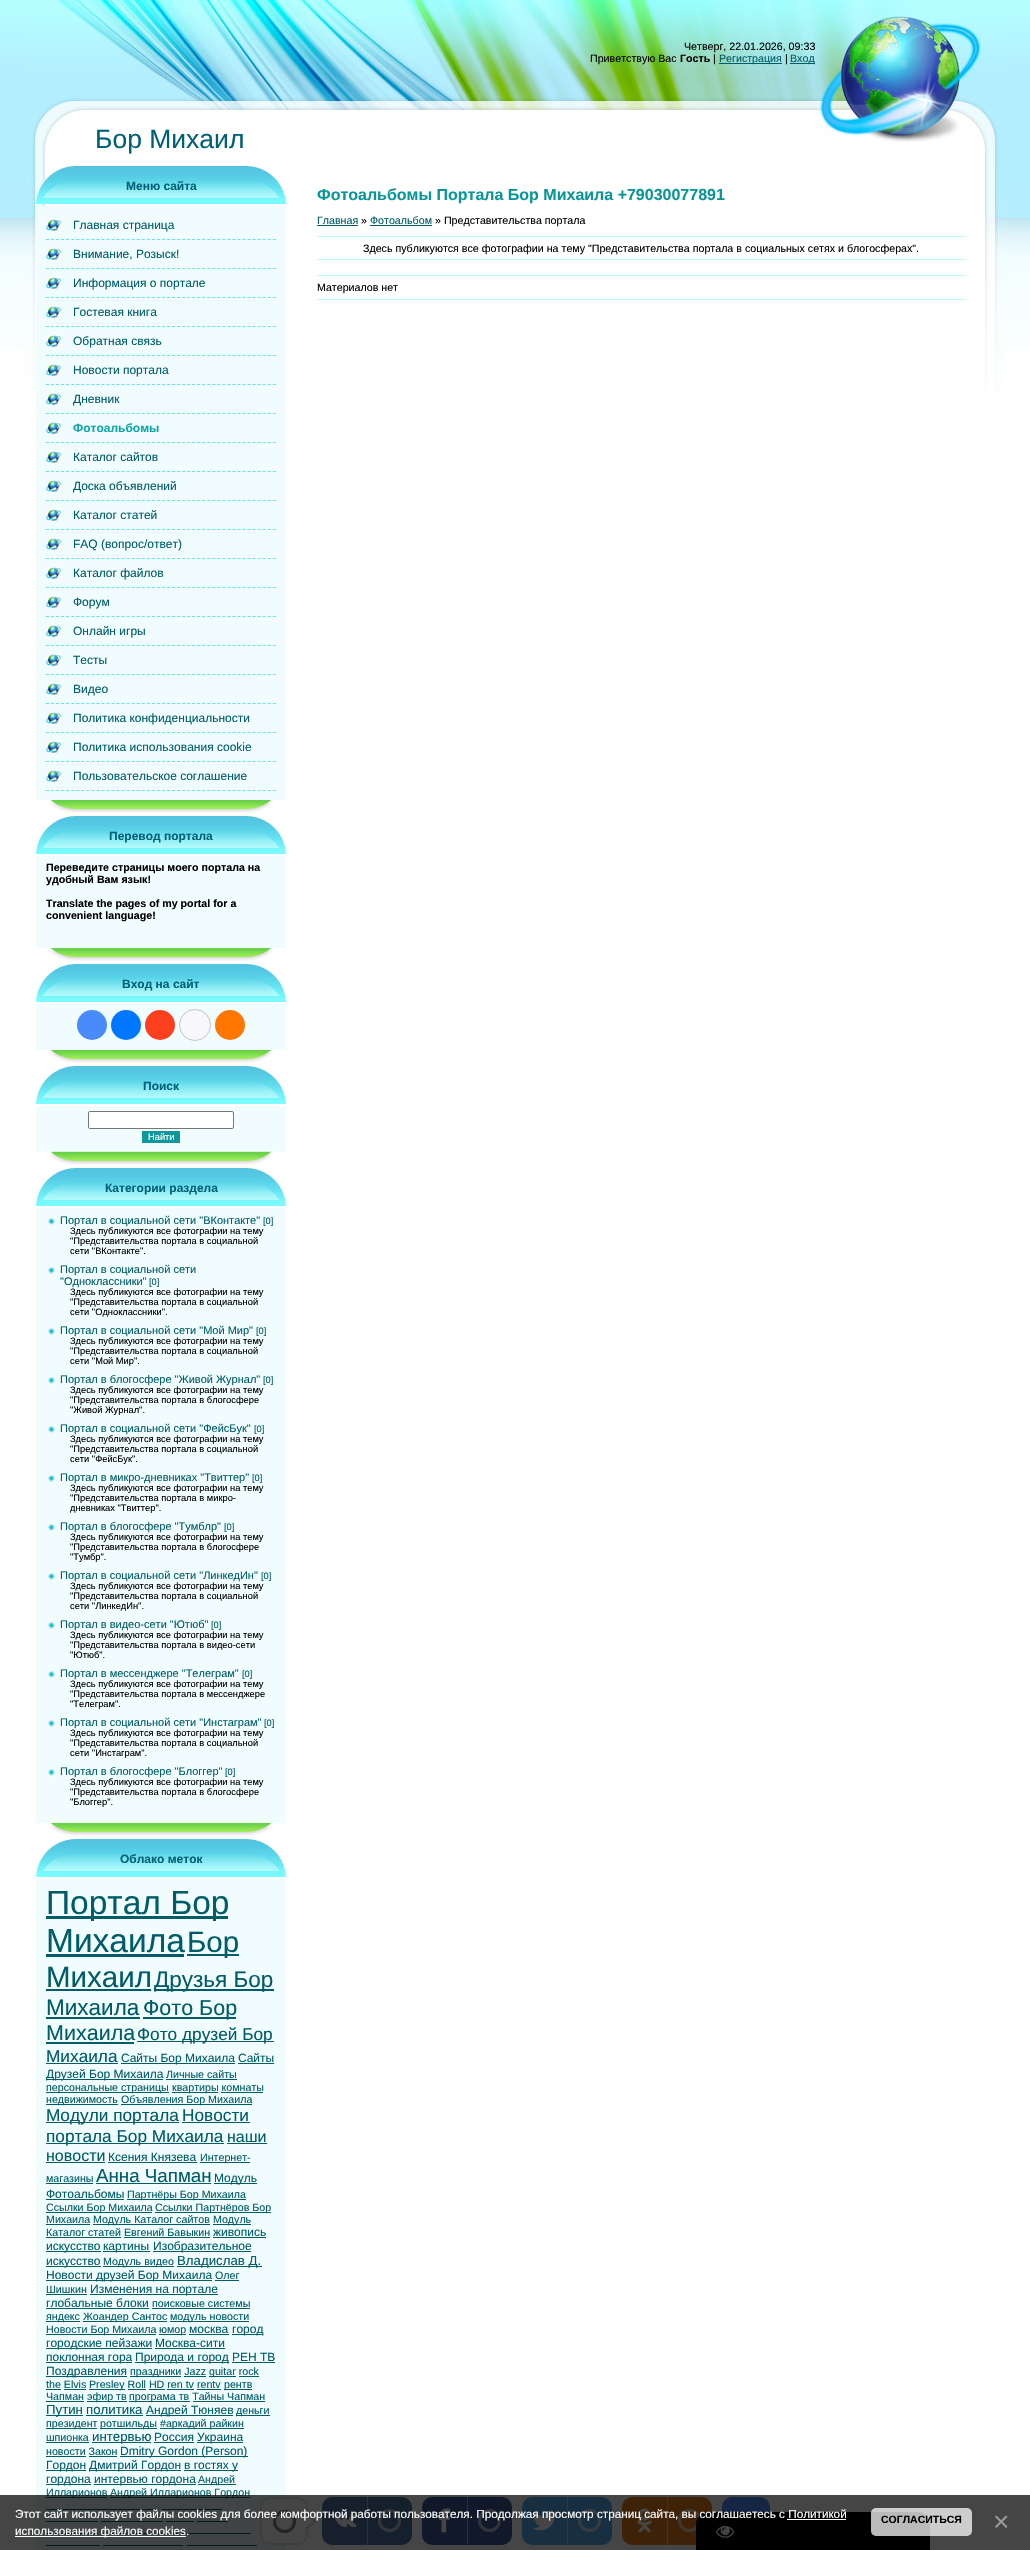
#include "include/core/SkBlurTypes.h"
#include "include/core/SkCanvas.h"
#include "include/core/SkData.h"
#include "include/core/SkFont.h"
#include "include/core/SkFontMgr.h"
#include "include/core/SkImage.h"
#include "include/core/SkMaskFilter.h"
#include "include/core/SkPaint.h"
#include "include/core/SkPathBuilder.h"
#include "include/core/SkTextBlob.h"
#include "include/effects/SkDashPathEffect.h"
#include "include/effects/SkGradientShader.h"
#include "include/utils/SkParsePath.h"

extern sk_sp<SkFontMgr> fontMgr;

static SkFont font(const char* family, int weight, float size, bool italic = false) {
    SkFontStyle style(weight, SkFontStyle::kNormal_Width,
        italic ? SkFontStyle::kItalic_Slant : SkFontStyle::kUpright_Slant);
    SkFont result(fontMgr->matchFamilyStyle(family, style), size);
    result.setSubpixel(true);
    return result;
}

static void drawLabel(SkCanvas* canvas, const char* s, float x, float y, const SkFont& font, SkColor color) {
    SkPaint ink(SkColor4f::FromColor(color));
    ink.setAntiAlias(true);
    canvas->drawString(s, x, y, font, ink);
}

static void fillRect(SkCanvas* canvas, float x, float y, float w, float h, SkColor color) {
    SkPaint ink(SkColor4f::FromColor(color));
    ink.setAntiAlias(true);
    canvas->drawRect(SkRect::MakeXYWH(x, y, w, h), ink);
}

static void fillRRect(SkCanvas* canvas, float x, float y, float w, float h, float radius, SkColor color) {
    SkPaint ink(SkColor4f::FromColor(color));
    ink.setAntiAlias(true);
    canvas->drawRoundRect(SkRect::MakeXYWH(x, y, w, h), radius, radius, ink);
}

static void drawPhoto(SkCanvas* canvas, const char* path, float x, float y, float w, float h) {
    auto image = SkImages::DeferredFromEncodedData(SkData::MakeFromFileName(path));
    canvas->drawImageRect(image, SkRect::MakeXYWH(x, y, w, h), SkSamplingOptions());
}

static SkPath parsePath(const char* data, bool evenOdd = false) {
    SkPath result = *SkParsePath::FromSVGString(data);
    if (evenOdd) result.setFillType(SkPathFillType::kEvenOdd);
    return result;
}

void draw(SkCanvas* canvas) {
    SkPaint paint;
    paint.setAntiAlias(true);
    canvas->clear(0xFFFFFFFF);
    drawPhoto(canvas, "assets/img1.png", 0, 0, 1030, 348);
    drawPhoto(canvas, "assets/img2.png", 25, 0, 980, 392);
    SkFont font1 = font("Liberation Sans", 400, 10.67f);
    drawLabel(canvas, "Четверг, 22.01.2026, 09:33", 684, 50, font1, 0xFF000000);
    drawLabel(canvas, "Приветствую Вас", 590, 62, font1, 0xFF000000);
    SkFont font2 = font("Liberation Sans", 700, 10.67f);
    drawLabel(canvas, "Гость", 680, 62, font2, 0xFF000000);
    drawLabel(canvas, "|", 713, 62, font1, 0xFF000000);
    fillRect(canvas, 719, 63, 63, 1, 0xFF005D68);
    drawLabel(canvas, "Регистрация", 719, 62, font1, 0xFF005D68);
    drawLabel(canvas, "|", 785, 62, font1, 0xFF000000);
    fillRect(canvas, 790, 63, 25, 1, 0xFF005D68);
    drawLabel(canvas, "Вход", 790, 62, font1, 0xFF005D68);
    SkFont font3 = font("Liberation Sans", 400, 26.5f);
    drawLabel(canvas, "Бор Михаил", 95, 148, font3, 0xFF006076);
    drawPhoto(canvas, "assets/img3.png", 36, 166, 250, 38);
    SkFont font4 = font("Liberation Sans", 700, 12);
    drawLabel(canvas, "Меню сайта", 126, 190, font4, 0xFF006076);
    drawPhoto(canvas, "assets/img4.png", 36, 206, 250, 607);
    drawPhoto(canvas, "assets/img5.png", 46, 219, 15, 12);
    paint.setStroke(true);
    paint.setStrokeWidth(1);
    paint.setColor(0xFF67E1EE);
    paint.setPathEffect(SkDashPathEffect::Make({{3, 2.04f}}, 0));
    canvas->drawPath(parsePath("M46 239.5H276"), paint);
    paint.setPathEffect(nullptr);
    SkFont font5 = font("Liberation Sans", 400, 12);
    drawLabel(canvas, "Главная страница", 73, 229, font5, 0xFF005D68);
    drawPhoto(canvas, "assets/img5.png", 46, 248, 15, 12);
    paint.setPathEffect(SkDashPathEffect::Make({{3, 2.04f}}, 0));
    canvas->drawPath(parsePath("M46 268.5H276"), paint);
    paint.setPathEffect(nullptr);
    drawLabel(canvas, "Внимание, Розыск!", 73, 258, font5, 0xFF005D68);
    drawPhoto(canvas, "assets/img5.png", 46, 277, 15, 12);
    paint.setPathEffect(SkDashPathEffect::Make({{3, 2.04f}}, 0));
    canvas->drawPath(parsePath("M46 297.5H276"), paint);
    paint.setPathEffect(nullptr);
    drawLabel(canvas, "Информация о портале", 73, 287, font5, 0xFF005D68);
    drawPhoto(canvas, "assets/img5.png", 46, 306, 15, 12);
    paint.setPathEffect(SkDashPathEffect::Make({{3, 2.04f}}, 0));
    canvas->drawPath(parsePath("M46 326.5H276"), paint);
    paint.setPathEffect(nullptr);
    drawLabel(canvas, "Гостевая книга", 73, 316, font5, 0xFF005D68);
    drawPhoto(canvas, "assets/img5.png", 46, 335, 15, 12);
    paint.setPathEffect(SkDashPathEffect::Make({{3, 2.04f}}, 0));
    canvas->drawPath(parsePath("M46 355.5H276"), paint);
    paint.setPathEffect(nullptr);
    drawLabel(canvas, "Обратная связь", 73, 345, font5, 0xFF005D68);
    drawPhoto(canvas, "assets/img5.png", 46, 364, 15, 12);
    paint.setPathEffect(SkDashPathEffect::Make({{3, 2.04f}}, 0));
    canvas->drawPath(parsePath("M46 384.5H276"), paint);
    paint.setPathEffect(nullptr);
    drawLabel(canvas, "Новости портала", 73, 374, font5, 0xFF005D68);
    drawPhoto(canvas, "assets/img5.png", 46, 393, 15, 12);
    paint.setPathEffect(SkDashPathEffect::Make({{3, 2.04f}}, 0));
    canvas->drawPath(parsePath("M46 413.5H276"), paint);
    paint.setPathEffect(nullptr);
    drawLabel(canvas, "Дневник", 73, 403, font5, 0xFF005D68);
    drawPhoto(canvas, "assets/img5.png", 46, 422, 15, 12);
    paint.setPathEffect(SkDashPathEffect::Make({{3, 2.04f}}, 0));
    canvas->drawPath(parsePath("M46 442.5H276"), paint);
    paint.setPathEffect(nullptr);
    drawLabel(canvas, "Фотоальбомы", 73, 432, font4, 0xFF0CA6A6);
    drawPhoto(canvas, "assets/img5.png", 46, 451, 15, 12);
    paint.setPathEffect(SkDashPathEffect::Make({{3, 2.04f}}, 0));
    canvas->drawPath(parsePath("M46 471.5H276"), paint);
    paint.setPathEffect(nullptr);
    drawLabel(canvas, "Каталог сайтов", 73, 461, font5, 0xFF005D68);
    drawPhoto(canvas, "assets/img5.png", 46, 480, 15, 12);
    paint.setPathEffect(SkDashPathEffect::Make({{3, 2.04f}}, 0));
    canvas->drawPath(parsePath("M46 500.5H276"), paint);
    paint.setPathEffect(nullptr);
    drawLabel(canvas, "Доска объявлений", 73, 490, font5, 0xFF005D68);
    drawPhoto(canvas, "assets/img5.png", 46, 509, 15, 12);
    paint.setPathEffect(SkDashPathEffect::Make({{3, 2.04f}}, 0));
    canvas->drawPath(parsePath("M46 529.5H276"), paint);
    paint.setPathEffect(nullptr);
    drawLabel(canvas, "Каталог статей", 73, 519, font5, 0xFF005D68);
    drawPhoto(canvas, "assets/img5.png", 46, 538, 15, 12);
    paint.setPathEffect(SkDashPathEffect::Make({{3, 2.04f}}, 0));
    canvas->drawPath(parsePath("M46 558.5H276"), paint);
    paint.setPathEffect(nullptr);
    drawLabel(canvas, "FAQ (вопрос/ответ)", 73, 548, font5, 0xFF005D68);
    drawPhoto(canvas, "assets/img5.png", 46, 567, 15, 12);
    paint.setPathEffect(SkDashPathEffect::Make({{3, 2.04f}}, 0));
    canvas->drawPath(parsePath("M46 587.5H276"), paint);
    paint.setPathEffect(nullptr);
    drawLabel(canvas, "Каталог файлов", 73, 577, font5, 0xFF005D68);
    drawPhoto(canvas, "assets/img5.png", 46, 596, 15, 12);
    paint.setPathEffect(SkDashPathEffect::Make({{3, 2.04f}}, 0));
    canvas->drawPath(parsePath("M46 616.5H276"), paint);
    paint.setPathEffect(nullptr);
    drawLabel(canvas, "Форум", 73, 606, font5, 0xFF005D68);
    drawPhoto(canvas, "assets/img5.png", 46, 625, 15, 12);
    paint.setPathEffect(SkDashPathEffect::Make({{3, 2.04f}}, 0));
    canvas->drawPath(parsePath("M46 645.5H276"), paint);
    paint.setPathEffect(nullptr);
    drawLabel(canvas, "Онлайн игры", 73, 635, font5, 0xFF005D68);
    drawPhoto(canvas, "assets/img5.png", 46, 654, 15, 12);
    paint.setPathEffect(SkDashPathEffect::Make({{3, 2.04f}}, 0));
    canvas->drawPath(parsePath("M46 674.5H276"), paint);
    paint.setPathEffect(nullptr);
    drawLabel(canvas, "Тесты", 73, 664, font5, 0xFF005D68);
    drawPhoto(canvas, "assets/img5.png", 46, 683, 15, 12);
    paint.setPathEffect(SkDashPathEffect::Make({{3, 2.04f}}, 0));
    canvas->drawPath(parsePath("M46 703.5H276"), paint);
    paint.setPathEffect(nullptr);
    drawLabel(canvas, "Видео", 73, 693, font5, 0xFF005D68);
    drawPhoto(canvas, "assets/img5.png", 46, 712, 15, 12);
    paint.setPathEffect(SkDashPathEffect::Make({{3, 2.04f}}, 0));
    canvas->drawPath(parsePath("M46 732.5H276"), paint);
    paint.setPathEffect(nullptr);
    drawLabel(canvas, "Политика конфиденциальности", 73, 722, font5, 0xFF005D68);
    drawPhoto(canvas, "assets/img5.png", 46, 741, 15, 12);
    paint.setPathEffect(SkDashPathEffect::Make({{3, 2.04f}}, 0));
    canvas->drawPath(parsePath("M46 761.5H276"), paint);
    paint.setPathEffect(nullptr);
    drawLabel(canvas, "Политика использования cookie", 73, 751, font5, 0xFF005D68);
    drawPhoto(canvas, "assets/img5.png", 46, 770, 15, 12);
    paint.setPathEffect(SkDashPathEffect::Make({{3, 2.04f}}, 0));
    canvas->drawPath(parsePath("M46 790.5H276"), paint);
    paint.setPathEffect(nullptr);
    drawLabel(canvas, "Пользовательское соглашение", 73, 780, font5, 0xFF005D68);
    drawPhoto(canvas, "assets/img6.png", 36, 816, 250, 38);
    drawLabel(canvas, "Перевод портала", 109, 840, font4, 0xFF006076);
    drawPhoto(canvas, "assets/img7.png", 36, 856, 250, 105);
    drawLabel(canvas, "Переведите страницы моего портала на", 46, 871, font2, 0xFF000000);
    drawLabel(canvas, "удобный Вам язык!", 46, 883, font2, 0xFF000000);
    drawLabel(canvas, "Translate the pages of my portal for a", 46, 907, font2, 0xFF000000);
    drawLabel(canvas, "convenient language!", 46, 919, font2, 0xFF000000);
    drawPhoto(canvas, "assets/img6.png", 36, 964, 250, 38);
    drawLabel(canvas, "Вход на сайт", 122, 988, font4, 0xFF006076);
    drawPhoto(canvas, "assets/img8.png", 36, 1004, 250, 59);
    paint.setStroke(false);
    paint.setColor(0xFF498BFA);
    canvas->drawCircle(92, 1025, 15, paint);
    paint.setColor(0xFF0077FF);
    canvas->drawCircle(126, 1025, 15, paint);
    paint.setColor(0xFFFC3F1D);
    canvas->drawCircle(160, 1025, 15, paint);
    paint.setColor(0xFFF8F8FC);
    canvas->drawCircle(195, 1025, 15.5f, paint);
    paint.setStroke(true);
    paint.setColor(0xFFC4C4C4);
    canvas->drawCircle(195, 1025, 15.5f, paint);
    paint.setStroke(false);
    paint.setColor(0xFFFF7700);
    canvas->drawCircle(230, 1025, 15, paint);
    drawPhoto(canvas, "assets/img6.png", 36, 1066, 250, 38);
    drawLabel(canvas, "Поиск", 143, 1090, font4, 0xFF006076);
    drawPhoto(canvas, "assets/img9.png", 36, 1106, 250, 59);
    paint.setColor(0xFFFFFFFF);
    canvas->drawRoundRect(SkRect::MakeXYWH(88.5f, 1111.5f, 145, 17), 1.5f, 1.5f, paint);
    paint.setStroke(true);
    paint.setColor(0xFF767676);
    canvas->drawRoundRect(SkRect::MakeXYWH(88.5f, 1111.5f, 145, 17), 1.5f, 1.5f, paint);
    fillRect(canvas, 142, 1131, 38, 12, 0xFF0D989C);
    SkFont font6 = font("Liberation Sans", 400, 9.3f);
    drawLabel(canvas, "Найти", 148, 1140, font6, 0xFFFFFFFF);
    drawPhoto(canvas, "assets/img6.png", 36, 1168, 250, 38);
    drawLabel(canvas, "Категории раздела", 105, 1192, font4, 0xFF006076);
    drawPhoto(canvas, "assets/img10.png", 36, 1208, 250, 628);
    drawPhoto(canvas, "assets/img11.png", 48, 1217, 8, 9);
    SkFont font7 = font("Liberation Sans", 400, 11);
    drawLabel(canvas, "Портал в социальной сети \"ВКонтакте\"", 60, 1224, font7, 0xFF005D68);
    drawLabel(canvas, "[0]", 263, 1224, font6, 0xFF005D68);
    drawLabel(canvas, "Здесь публикуются все фотографии на тему", 70, 1234, font6, 0xFF000000);
    drawLabel(canvas, "\"Представительства портала в социальной", 70, 1244, font6, 0xFF000000);
    drawLabel(canvas, "сети \"ВКонтакте\".", 70, 1254, font6, 0xFF000000);
    drawPhoto(canvas, "assets/img11.png", 48, 1266, 8, 9);
    drawLabel(canvas, "Портал в социальной сети", 60, 1273, font7, 0xFF005D68);
    drawLabel(canvas, "\"Одноклассники\"", 60, 1285, font7, 0xFF005D68);
    drawLabel(canvas, "[0]", 149, 1285, font6, 0xFF005D68);
    drawLabel(canvas, "Здесь публикуются все фотографии на тему", 70, 1295, font6, 0xFF000000);
    drawLabel(canvas, "\"Представительства портала в социальной", 70, 1305, font6, 0xFF000000);
    drawLabel(canvas, "сети \"Одноклассники\".", 70, 1315, font6, 0xFF000000);
    drawPhoto(canvas, "assets/img11.png", 48, 1327, 8, 9);
    drawLabel(canvas, "Портал в социальной сети \"Мой Мир\"", 60, 1334, font7, 0xFF005D68);
    drawLabel(canvas, "[0]", 256, 1334, font6, 0xFF005D68);
    drawLabel(canvas, "Здесь публикуются все фотографии на тему", 70, 1344, font6, 0xFF000000);
    drawLabel(canvas, "\"Представительства портала в социальной", 70, 1354, font6, 0xFF000000);
    drawLabel(canvas, "сети \"Мой Мир\".", 70, 1364, font6, 0xFF000000);
    drawPhoto(canvas, "assets/img11.png", 48, 1376, 8, 9);
    drawLabel(canvas, "Портал в блогосфере \"Живой Журнал\"", 60, 1383, font7, 0xFF005D68);
    drawLabel(canvas, "[0]", 263, 1383, font6, 0xFF005D68);
    drawLabel(canvas, "Здесь публикуются все фотографии на тему", 70, 1393, font6, 0xFF000000);
    drawLabel(canvas, "\"Представительства портала в блогосфере", 70, 1403, font6, 0xFF000000);
    drawLabel(canvas, "\"Живой Журнал\".", 70, 1413, font6, 0xFF000000);
    drawPhoto(canvas, "assets/img11.png", 48, 1425, 8, 9);
    drawLabel(canvas, "Портал в социальной сети \"ФейсБук\"", 60, 1432, font7, 0xFF005D68);
    drawLabel(canvas, "[0]", 254, 1432, font6, 0xFF005D68);
    drawLabel(canvas, "Здесь публикуются все фотографии на тему", 70, 1442, font6, 0xFF000000);
    drawLabel(canvas, "\"Представительства портала в социальной", 70, 1452, font6, 0xFF000000);
    drawLabel(canvas, "сети \"ФейсБук\".", 70, 1462, font6, 0xFF000000);
    drawPhoto(canvas, "assets/img11.png", 48, 1474, 8, 9);
    drawLabel(canvas, "Портал в микро-дневниках \"Твиттер\"", 60, 1481, font7, 0xFF005D68);
    drawLabel(canvas, "[0]", 252, 1481, font6, 0xFF005D68);
    drawLabel(canvas, "Здесь публикуются все фотографии на тему", 70, 1491, font6, 0xFF000000);
    drawLabel(canvas, "\"Представительства портала в микро-", 70, 1501, font6, 0xFF000000);
    drawLabel(canvas, "дневниках \"Твиттер\".", 70, 1511, font6, 0xFF000000);
    drawPhoto(canvas, "assets/img11.png", 48, 1523, 8, 9);
    drawLabel(canvas, "Портал в блогосфере \"Тумблр\"", 60, 1530, font7, 0xFF005D68);
    drawLabel(canvas, "[0]", 224, 1530, font6, 0xFF005D68);
    drawLabel(canvas, "Здесь публикуются все фотографии на тему", 70, 1540, font6, 0xFF000000);
    drawLabel(canvas, "\"Представительства портала в блогосфере", 70, 1550, font6, 0xFF000000);
    drawLabel(canvas, "\"Тумбр\".", 70, 1560, font6, 0xFF000000);
    drawPhoto(canvas, "assets/img11.png", 48, 1572, 8, 9);
    drawLabel(canvas, "Портал в социальной сети \"ЛинкедИн\"", 60, 1579, font7, 0xFF005D68);
    drawLabel(canvas, "[0]", 261, 1579, font6, 0xFF005D68);
    drawLabel(canvas, "Здесь публикуются все фотографии на тему", 70, 1589, font6, 0xFF000000);
    drawLabel(canvas, "\"Представительства портала в социальной", 70, 1599, font6, 0xFF000000);
    drawLabel(canvas, "сети \"ЛинкедИн\".", 70, 1609, font6, 0xFF000000);
    drawPhoto(canvas, "assets/img11.png", 48, 1621, 8, 9);
    drawLabel(canvas, "Портал в видео-сети \"Ютюб\"", 60, 1628, font7, 0xFF005D68);
    drawLabel(canvas, "[0]", 211, 1628, font6, 0xFF005D68);
    drawLabel(canvas, "Здесь публикуются все фотографии на тему", 70, 1638, font6, 0xFF000000);
    drawLabel(canvas, "\"Представительства портала в видео-сети", 70, 1648, font6, 0xFF000000);
    drawLabel(canvas, "\"Ютюб\".", 70, 1658, font6, 0xFF000000);
    drawPhoto(canvas, "assets/img11.png", 48, 1670, 8, 9);
    drawLabel(canvas, "Портал в мессенджере \"Телеграм\"", 60, 1677, font7, 0xFF005D68);
    drawLabel(canvas, "[0]", 242, 1677, font6, 0xFF005D68);
    drawLabel(canvas, "Здесь публикуются все фотографии на тему", 70, 1687, font6, 0xFF000000);
    drawLabel(canvas, "\"Представительства портала в мессенджере", 70, 1697, font6, 0xFF000000);
    drawLabel(canvas, "\"Телеграм\".", 70, 1707, font6, 0xFF000000);
    drawPhoto(canvas, "assets/img11.png", 48, 1719, 8, 9);
    drawLabel(canvas, "Портал в социальной сети \"Инстаграм\"", 60, 1726, font7, 0xFF005D68);
    drawLabel(canvas, "[0]", 264, 1726, font6, 0xFF005D68);
    drawLabel(canvas, "Здесь публикуются все фотографии на тему", 70, 1736, font6, 0xFF000000);
    drawLabel(canvas, "\"Представительства портала в социальной", 70, 1746, font6, 0xFF000000);
    drawLabel(canvas, "сети \"Инстаграм\".", 70, 1756, font6, 0xFF000000);
    drawPhoto(canvas, "assets/img11.png", 48, 1768, 8, 9);
    drawLabel(canvas, "Портал в блогосфере \"Блоггер\"", 60, 1775, font7, 0xFF005D68);
    drawLabel(canvas, "[0]", 225, 1775, font6, 0xFF005D68);
    drawLabel(canvas, "Здесь публикуются все фотографии на тему", 70, 1785, font6, 0xFF000000);
    drawLabel(canvas, "\"Представительства портала в блогосфере", 70, 1795, font6, 0xFF000000);
    drawLabel(canvas, "\"Блоггер\".", 70, 1805, font6, 0xFF000000);
    drawPhoto(canvas, "assets/img6.png", 36, 1839, 250, 38);
    drawLabel(canvas, "Облако меток", 120, 1863, font4, 0xFF006076);
    fillRect(canvas, 36, 1879, 250, 671, 0xFFF1FCFF);
    fillRect(canvas, 46, 1916, 182, 3, 0xFF005D68);
    SkFont font8 = font("Liberation Sans", 400, 33.5f);
    drawLabel(canvas, "Портал Бор", 46, 1914, font8, 0xFF005D68);
    drawLabel(canvas, "Михаила", 46, 1952, font8, 0xFF005D68);
    fillRect(canvas, 187, 1954, 52, 2, 0xFF005D68);
    SkFont font9 = font("Liberation Sans", 400, 29.5f);
    drawLabel(canvas, "Бор", 187, 1952, font9, 0xFF005D68);
    fillRect(canvas, 46, 1954, 138, 3, 0xFF005D68);
    drawLabel(canvas, "Михаил", 46, 1987, font9, 0xFF005D68);
    fillRect(canvas, 154, 1989, 120, 2, 0xFF005D68);
    SkFont font10 = font("Liberation Sans", 400, 22.5f);
    drawLabel(canvas, "Друзья Бор", 154, 1987, font10, 0xFF005D68);
    fillRect(canvas, 46, 1989, 105, 2, 0xFF005D68);
    drawLabel(canvas, "Михаила", 46, 2015, font10, 0xFF005D68);
    fillRect(canvas, 143, 2017, 93, 2, 0xFF005D68);
    SkFont font11 = font("Liberation Sans", 400, 21.5f);
    drawLabel(canvas, "Фото Бор", 143, 2015, font11, 0xFF005D68);
    fillRect(canvas, 46, 2017, 94, 2, 0xFF005D68);
    drawLabel(canvas, "Михаила", 46, 2040, font11, 0xFF005D68);
    fillRect(canvas, 137, 2041, 137, 1, 0xFF005D68);
    SkFont font12 = font("Liberation Sans", 400, 17.25f);
    drawLabel(canvas, "Фото друзей Бор", 137, 2040, font12, 0xFF005D68);
    fillRect(canvas, 46, 2042, 88, 2, 0xFF005D68);
    drawLabel(canvas, "Михаила", 46, 2062, font12, 0xFF005D68);
    fillRect(canvas, 121, 2063, 114, 1, 0xFF005D68);
    drawLabel(canvas, "Сайты Бор Михаила", 121, 2062, font5, 0xFF005D68);
    fillRect(canvas, 46, 2063, 72, 1, 0xFF005D68);
    drawLabel(canvas, "Сайты", 238, 2062, font5, 0xFF005D68);
    fillRect(canvas, 238, 2063, 36, 1, 0xFF005D68);
    fillRect(canvas, 46, 2079, 117, 1, 0xFF005D68);
    drawLabel(canvas, "Друзей Бор Михаила", 46, 2078, font5, 0xFF005D68);
    drawLabel(canvas, "Личные сайты", 166, 2078, font1, 0xFF005D68);
    fillRect(canvas, 166, 2079, 71, 1, 0xFF005D68);
    fillRect(canvas, 46, 2092, 123, 1, 0xFF005D68);
    drawLabel(canvas, "персональные страницы", 46, 2091, font1, 0xFF005D68);
    fillRect(canvas, 172, 2092, 46, 1, 0xFF005D68);
    drawLabel(canvas, "квартиры комнаты", 172, 2091, font1, 0xFF005D68);
    fillRect(canvas, 221, 2092, 42, 1, 0xFF005D68);
    fillRect(canvas, 46, 2104, 72, 1, 0xFF005D68);
    drawLabel(canvas, "недвижимость", 46, 2103, font1, 0xFF005D68);
    fillRect(canvas, 121, 2104, 131, 1, 0xFF005D68);
    drawLabel(canvas, "Объявления Бор Михаила", 121, 2103, font1, 0xFF005D68);
    fillRect(canvas, 46, 2122, 133, 1, 0xFF005D68);
    drawLabel(canvas, "Модули портала", 46, 2121, font12, 0xFF005D68);
    fillRect(canvas, 182, 2122, 68, 1, 0xFF005D68);
    drawLabel(canvas, "Новости", 182, 2121, font12, 0xFF005D68);
    fillRect(canvas, 46, 2143, 178, 1, 0xFF005D68);
    drawLabel(canvas, "портала Бор Михаила", 46, 2142, font12, 0xFF005D68);
    SkFont font13 = font("Liberation Sans", 400, 16);
    drawLabel(canvas, "наши", 227, 2142, font13, 0xFF005D68);
    fillRect(canvas, 227, 2143, 40, 1, 0xFF005D68);
    drawLabel(canvas, "новости", 46, 2161, font13, 0xFF005D68);
    fillRect(canvas, 46, 2162, 59, 1, 0xFF005D68);
    drawLabel(canvas, "Ксения Князева", 108, 2161, font5, 0xFF005D68);
    fillRect(canvas, 108, 2162, 89, 1, 0xFF005D68);
    fillRect(canvas, 200, 2162, 50, 1, 0xFF005D68);
    drawLabel(canvas, "Интернет-", 200, 2161, font1, 0xFF005D68);
    drawLabel(canvas, "магазины", 46, 2182, font1, 0xFF005D68);
    fillRect(canvas, 46, 2183, 47, 1, 0xFF005D68);
    fillRect(canvas, 96, 2183, 115, 1, 0xFF005D68);
    SkFont font14 = font("Liberation Sans", 400, 18.75f);
    drawLabel(canvas, "Анна Чапман", 96, 2182, font14, 0xFF005D68);
    fillRect(canvas, 214, 2183, 43, 1, 0xFF005D68);
    drawLabel(canvas, "Модуль", 214, 2182, font5, 0xFF005D68);
    drawLabel(canvas, "Фотоальбомы", 46, 2198, font5, 0xFF005D68);
    fillRect(canvas, 46, 2199, 78, 1, 0xFF005D68);
    fillRect(canvas, 127, 2199, 119, 1, 0xFF005D68);
    drawLabel(canvas, "Партнёры Бор Михаила", 127, 2198, font1, 0xFF005D68);
    fillRect(canvas, 46, 2212, 106, 1, 0xFF005D68);
    drawLabel(canvas, "Ссылки Бор Михаила", 46, 2211, font1, 0xFF005D68);
    fillRect(canvas, 155, 2212, 116, 1, 0xFF005D68);
    drawLabel(canvas, "Ссылки Партнёров Бор", 155, 2211, font1, 0xFF005D68);
    drawLabel(canvas, "Михаила", 46, 2223, font1, 0xFF005D68);
    fillRect(canvas, 46, 2224, 44, 1, 0xFF005D68);
    fillRect(canvas, 93, 2224, 117, 1, 0xFF005D68);
    drawLabel(canvas, "Модуль Каталог сайтов", 93, 2223, font1, 0xFF005D68);
    fillRect(canvas, 213, 2224, 38, 1, 0xFF005D68);
    drawLabel(canvas, "Модуль", 213, 2223, font1, 0xFF005D68);
    drawLabel(canvas, "Каталог статей Евгений Бавыкин", 46, 2236, font1, 0xFF005D68);
    fillRect(canvas, 46, 2237, 75, 1, 0xFF005D68);
    fillRect(canvas, 124, 2237, 86, 1, 0xFF005D68);
    drawLabel(canvas, "живопись", 213, 2236, font5, 0xFF005D68);
    fillRect(canvas, 213, 2237, 53, 1, 0xFF005D68);
    fillRect(canvas, 46, 2251, 55, 1, 0xFF005D68);
    drawLabel(canvas, "искусство", 46, 2250, font5, 0xFF005D68);
    fillRect(canvas, 103, 2251, 47, 1, 0xFF005D68);
    drawLabel(canvas, "картины", 103, 2250, font5, 0xFF005D68);
    fillRect(canvas, 153, 2251, 98, 1, 0xFF005D68);
    drawLabel(canvas, "Изобразительное", 153, 2250, font5, 0xFF005D68);
    fillRect(canvas, 46, 2266, 55, 1, 0xFF005D68);
    drawLabel(canvas, "искусство", 46, 2265, font5, 0xFF005D68);
    fillRect(canvas, 103, 2266, 71, 1, 0xFF005D68);
    drawLabel(canvas, "Модуль видео", 103, 2265, font1, 0xFF005D68);
    fillRect(canvas, 177, 2266, 85, 1, 0xFF005D68);
    SkFont font15 = font("Liberation Sans", 400, 13.25f);
    drawLabel(canvas, "Владислав Д.", 177, 2265, font15, 0xFF005D68);
    fillRect(canvas, 46, 2280, 166, 1, 0xFF005D68);
    drawLabel(canvas, "Новости друзей Бор Михаила", 46, 2279, font5, 0xFF005D68);
    drawLabel(canvas, "Олег", 215, 2279, font1, 0xFF005D68);
    fillRect(canvas, 215, 2280, 24, 1, 0xFF005D68);
    drawLabel(canvas, "Шишкин", 46, 2293, font1, 0xFF005D68);
    fillRect(canvas, 46, 2294, 41, 1, 0xFF005D68);
    fillRect(canvas, 90, 2294, 128, 1, 0xFF005D68);
    drawLabel(canvas, "Изменения на портале", 90, 2293, font5, 0xFF005D68);
    drawLabel(canvas, "глобальные блоки", 46, 2307, font5, 0xFF005D68);
    fillRect(canvas, 46, 2308, 103, 1, 0xFF005D68);
    drawLabel(canvas, "поисковые системы", 152, 2307, font1, 0xFF005D68);
    fillRect(canvas, 152, 2308, 98, 1, 0xFF005D68);
    fillRect(canvas, 46, 2321, 34, 1, 0xFF005D68);
    drawLabel(canvas, "яндекс", 46, 2320, font1, 0xFF005D68);
    fillRect(canvas, 83, 2321, 84, 1, 0xFF005D68);
    drawLabel(canvas, "Жоандер Сантос", 83, 2320, font1, 0xFF005D68);
    fillRect(canvas, 170, 2321, 79, 1, 0xFF005D68);
    drawLabel(canvas, "модуль новости", 170, 2320, font1, 0xFF005D68);
    fillRect(canvas, 46, 2334, 110, 1, 0xFF005D68);
    drawLabel(canvas, "Новости Бор Михаила", 46, 2333, font1, 0xFF005D68);
    fillRect(canvas, 159, 2334, 27, 1, 0xFF005D68);
    drawLabel(canvas, "юмор", 159, 2333, font1, 0xFF005D68);
    fillRect(canvas, 189, 2334, 40, 1, 0xFF005D68);
    drawLabel(canvas, "москва", 189, 2333, font5, 0xFF005D68);
    fillRect(canvas, 232, 2334, 31, 1, 0xFF005D68);
    drawLabel(canvas, "город", 232, 2333, font5, 0xFF005D68);
    fillRect(canvas, 46, 2348, 106, 1, 0xFF005D68);
    drawLabel(canvas, "городские пейзажи", 46, 2347, font5, 0xFF005D68);
    drawLabel(canvas, "Москва-сити", 155, 2347, font5, 0xFF005D68);
    fillRect(canvas, 155, 2348, 70, 1, 0xFF005D68);
    fillRect(canvas, 46, 2362, 86, 1, 0xFF005D68);
    drawLabel(canvas, "поклонная гора", 46, 2361, font5, 0xFF005D68);
    fillRect(canvas, 135, 2362, 94, 1, 0xFF005D68);
    drawLabel(canvas, "Природа и город", 135, 2361, font5, 0xFF005D68);
    fillRect(canvas, 232, 2362, 43, 1, 0xFF005D68);
    drawLabel(canvas, "РЕН ТВ", 232, 2361, font5, 0xFF005D68);
    fillRect(canvas, 46, 2376, 81, 1, 0xFF005D68);
    drawLabel(canvas, "Поздравления", 46, 2375, font5, 0xFF005D68);
    fillRect(canvas, 130, 2376, 51, 1, 0xFF005D68);
    drawLabel(canvas, "праздники Jazz", 130, 2375, font1, 0xFF005D68);
    fillRect(canvas, 184, 2376, 22, 1, 0xFF005D68);
    fillRect(canvas, 209, 2376, 27, 1, 0xFF005D68);
    drawLabel(canvas, "guitar rock", 209, 2375, font1, 0xFF005D68);
    fillRect(canvas, 239, 2376, 20, 1, 0xFF005D68);
    drawLabel(canvas, "the Elvis", 46, 2388, font1, 0xFF005D68);
    fillRect(canvas, 46, 2389, 15, 1, 0xFF005D68);
    fillRect(canvas, 64, 2389, 22, 1, 0xFF005D68);
    fillRect(canvas, 89, 2389, 36, 1, 0xFF005D68);
    drawLabel(canvas, "Presley Roll HD ren tv rentv", 89, 2388, font1, 0xFF005D68);
    fillRect(canvas, 128, 2389, 18, 1, 0xFF005D68);
    fillRect(canvas, 149, 2389, 16, 1, 0xFF005D68);
    fillRect(canvas, 167, 2389, 27, 1, 0xFF005D68);
    fillRect(canvas, 197, 2389, 24, 1, 0xFF005D68);
    fillRect(canvas, 224, 2389, 28, 1, 0xFF005D68);
    drawLabel(canvas, "рентв", 224, 2388, font1, 0xFF005D68);
    drawLabel(canvas, "Чапман", 46, 2400, font1, 0xFF005D68);
    fillRect(canvas, 46, 2401, 38, 1, 0xFF005D68);
    fillRect(canvas, 87, 2401, 40, 1, 0xFF005D68);
    drawLabel(canvas, "эфир тв", 87, 2400, font1, 0xFF005D68);
    fillRect(canvas, 129, 2401, 61, 1, 0xFF005D68);
    drawLabel(canvas, "програма тв Тайны Чапман", 129, 2400, font1, 0xFF005D68);
    fillRect(canvas, 193, 2401, 72, 1, 0xFF005D68);
    fillRect(canvas, 46, 2415, 37, 1, 0xFF005D68);
    drawLabel(canvas, "Путин", 46, 2414, font15, 0xFF005D68);
    drawLabel(canvas, "политика", 86, 2414, font15, 0xFF005D68);
    fillRect(canvas, 86, 2415, 57, 1, 0xFF005D68);
    fillRect(canvas, 146, 2415, 87, 1, 0xFF005D68);
    drawLabel(canvas, "Андрей Тюняев", 146, 2414, font5, 0xFF005D68);
    fillRect(canvas, 236, 2415, 34, 1, 0xFF005D68);
    drawLabel(canvas, "деньги", 236, 2414, font1, 0xFF005D68);
    fillRect(canvas, 46, 2428, 51, 1, 0xFF005D68);
    drawLabel(canvas, "президент", 46, 2427, font1, 0xFF005D68);
    fillRect(canvas, 100, 2428, 57, 1, 0xFF005D68);
    drawLabel(canvas, "ротшильды", 100, 2427, font1, 0xFF005D68);
    fillRect(canvas, 160, 2428, 84, 1, 0xFF005D68);
    drawLabel(canvas, "#аркадий райкин", 160, 2427, font1, 0xFF005D68);
    drawLabel(canvas, "шпионка", 46, 2441, font1, 0xFF005D68);
    fillRect(canvas, 46, 2442, 43, 1, 0xFF005D68);
    fillRect(canvas, 92, 2442, 59, 1, 0xFF005D68);
    drawLabel(canvas, "интервью", 92, 2441, font15, 0xFF005D68);
    fillRect(canvas, 154, 2442, 40, 1, 0xFF005D68);
    drawLabel(canvas, "Россия", 154, 2441, font5, 0xFF005D68);
    fillRect(canvas, 197, 2442, 46, 1, 0xFF005D68);
    drawLabel(canvas, "Украина", 197, 2441, font5, 0xFF005D68);
    drawLabel(canvas, "новости Закон", 46, 2455, font1, 0xFF005D68);
    fillRect(canvas, 46, 2456, 40, 1, 0xFF005D68);
    fillRect(canvas, 89, 2456, 28, 1, 0xFF005D68);
    fillRect(canvas, 120, 2456, 128, 1, 0xFF005D68);
    drawLabel(canvas, "Dmitry Gordon (Person)", 120, 2455, font5, 0xFF005D68);
    fillRect(canvas, 46, 2470, 40, 1, 0xFF005D68);
    drawLabel(canvas, "Гордон", 46, 2469, font5, 0xFF005D68);
    fillRect(canvas, 89, 2470, 92, 1, 0xFF005D68);
    drawLabel(canvas, "Дмитрий Гордон", 89, 2469, font5, 0xFF005D68);
    fillRect(canvas, 184, 2470, 54, 1, 0xFF005D68);
    drawLabel(canvas, "в гостях у", 184, 2469, font5, 0xFF005D68);
    fillRect(canvas, 46, 2484, 45, 1, 0xFF005D68);
    drawLabel(canvas, "гордона", 46, 2483, font5, 0xFF005D68);
    fillRect(canvas, 94, 2484, 102, 1, 0xFF005D68);
    drawLabel(canvas, "интервью гордона", 94, 2483, font5, 0xFF005D68);
    fillRect(canvas, 198, 2484, 38, 1, 0xFF005D68);
    drawLabel(canvas, "Андрей", 198, 2483, font1, 0xFF005D68);
    fillRect(canvas, 46, 2497, 61, 1, 0xFF005D68);
    drawLabel(canvas, "Илларионов", 46, 2496, font1, 0xFF005D68);
    fillRect(canvas, 46, 2509, 113, 1, 0xFF005D68);
    fillRect(canvas, 46, 2521, 52, 1, 0xFF005D68);
    fillRect(canvas, 101, 2521, 62, 1, 0xFF005D68);
    fillRect(canvas, 46, 2533, 52, 1, 0xFF005D68);
    fillRect(canvas, 101, 2533, 26, 1, 0xFF005D68);
    fillRect(canvas, 46, 2545, 54, 1, 0xFF005D68);
    fillRect(canvas, 103, 2545, 80, 1, 0xFF005D68);
    fillRect(canvas, 110, 2497, 140, 1, 0xFF005D68);
    drawLabel(canvas, "Андрей Илларионов Гордон", 110, 2496, font1, 0xFF005D68);
    fillRect(canvas, 162, 2509, 60, 1, 0xFF005D68);
    fillRect(canvas, 166, 2521, 28, 1, 0xFF005D68);
    fillRect(canvas, 197, 2521, 31, 1, 0xFF005D68);
    fillRect(canvas, 130, 2533, 35, 1, 0xFF005D68);
    fillRect(canvas, 168, 2533, 83, 1, 0xFF005D68);
    fillRect(canvas, 186, 2545, 71, 1, 0xFF005D68);
    SkFont font16 = font("Liberation Sans", 700, 16);
    drawLabel(canvas, "Фотоальбомы Портала Бор Михаила +79030077891", 317, 200, font16, 0xFF09969A);
    drawLabel(canvas, "Главная", 317, 224, font1, 0xFF005D68);
    fillRect(canvas, 317, 225, 41, 1, 0xFF005D68);
    drawLabel(canvas, "»", 361, 224, font1, 0xFF000000);
    drawLabel(canvas, "Фотоальбом", 370, 224, font1, 0xFF005D68);
    fillRect(canvas, 370, 225, 62, 1, 0xFF005D68);
    drawLabel(canvas, "» Представительства портала", 435, 224, font1, 0xFF000000);
    fillRect(canvas, 317, 236, 648, 1, 0xFFB9FAFF);
    drawLabel(canvas, "Здесь публикуются все фотографии на тему \"Представительства портала в социальных сетях и блогосферах\".", 363, 252, font1, 0xFF000000);
    fillRect(canvas, 317, 259, 648, 1, 0xFFB9FAFF);
    fillRect(canvas, 317, 275, 648, 1, 0xFFB9FAFF);
    drawLabel(canvas, "Материалов нет", 317, 291, font1, 0xFF000000);
    fillRect(canvas, 317, 299, 648, 1, 0xFFB9FAFF);
    paint.setStroke(false);
    paint.setColor(0xFFFFFFFF);
    canvas->drawRoundRect(SkRect::MakeXYWH(261, 2498, 46, 46), 9, 9, paint);
    paint.setStroke(true);
    paint.setStrokeWidth(2);
    paint.setColor(0xFFE0E2E6);
    canvas->drawRoundRect(SkRect::MakeXYWH(261, 2498, 46, 46), 9, 9, paint);
    paint.setStrokeWidth(3);
    paint.setColor(0xFF81858B);
    canvas->drawCircle(284.5f, 2521.5f, 10, paint);
    paint.setStroke(false);
    paint.setColor(0xFFD8DCDE);
    canvas->drawPath(parsePath("M306 2530V2512L317 2521Z"), paint);
    paint.setColor(0xFFFFFFFF);
    canvas->drawPath(parsePath("M306 2527V2515L314 2521Z"), paint);
    fillRRect(canvas, 322, 2497, 90, 48, 10, 0xFF4D75A3);
    drawPhoto(canvas, "assets/img12.png", 333, 2513, 24, 14);
    fillRect(canvas, 367, 2497, 1, 48, 0xFFA6BAD1);
    paint.setStroke(true);
    paint.setColor(0xFFB8C8DA);
    canvas->drawCircle(389.5f, 2520.5f, 10, paint);
    fillRRect(canvas, 422, 2497, 90, 48, 10, 0xFF3B5998);
    drawPhoto(canvas, "assets/img13.png", 439, 2508, 12, 25);
    fillRect(canvas, 467, 2497, 1, 48, 0xFF9DACCC);
    paint.setColor(0xFFB1BDD6);
    canvas->drawCircle(489.5f, 2520.5f, 10, paint);
    fillRRect(canvas, 522, 2497, 90, 48, 10, 0xFF55ACEE);
    drawPhoto(canvas, "assets/img14.png", 533, 2510, 25, 21);
    fillRect(canvas, 567, 2497, 1, 48, 0xFFAAD6F7);
    paint.setColor(0xFFBBDEF8);
    canvas->drawCircle(589.5f, 2520.5f, 10, paint);
    fillRRect(canvas, 622, 2497, 90, 48, 10, 0xFFE67E17);
    drawPhoto(canvas, "assets/img15.png", 637, 2508, 15, 25);
    fillRect(canvas, 667, 2497, 1, 48, 0xFFF3BF8B);
    paint.setColor(0xFFF5CBA2);
    canvas->drawCircle(689.5f, 2520.5f, 10, paint);
    fillRRect(canvas, 722, 2497, 48, 48, 10, 0xFF498BFA);
    paint.setStroke(false);
    paint.setColor(0xFF000000);
    canvas->drawPath(parsePath("M708 2512H918C924.5 2512 930 2517.5 930 2524V2550H696V2524C696 2517.5 701.5 2512 708 2512Z"), paint);
    drawPhoto(canvas, "assets/img16.png", 716, 2525, 18, 13);
    fillRect(canvas, 0, 2495, 1030, 55, 0xBA000000);
    SkFont font17 = font("Liberation Sans", 400, 11.73f);
    drawLabel(canvas, "Этот сайт использует файлы cookies для более комфортной работы пользователя. Продолжая просмотр страниц сайта, вы соглашаетесь с Политикой", 15, 2518, font17, 0xFFFFFFFF);
    fillRect(canvas, 15, 2536, 171, 1, 0xFFFFFFFF);
    drawLabel(canvas, "использования файлов cookies.", 15, 2535, font17, 0xFFFFFFFF);
    fillRect(canvas, 787, 2519, 59, 1, 0xFFFFFFFF);
    fillRRect(canvas, 871, 2508, 101, 28, 5, 0xBAFFFFFF);
    SkFont font18 = font("Liberation Sans", 700, 10.5f);
    drawLabel(canvas, "СОГЛАСИТЬСЯ", 881, 2523, font18, 0xFF000000);
    SkFont font19 = font("Liberation Sans", 400, 28);
    drawLabel(canvas, "×", 993, 2531, font19, 0xFF999999);
}
